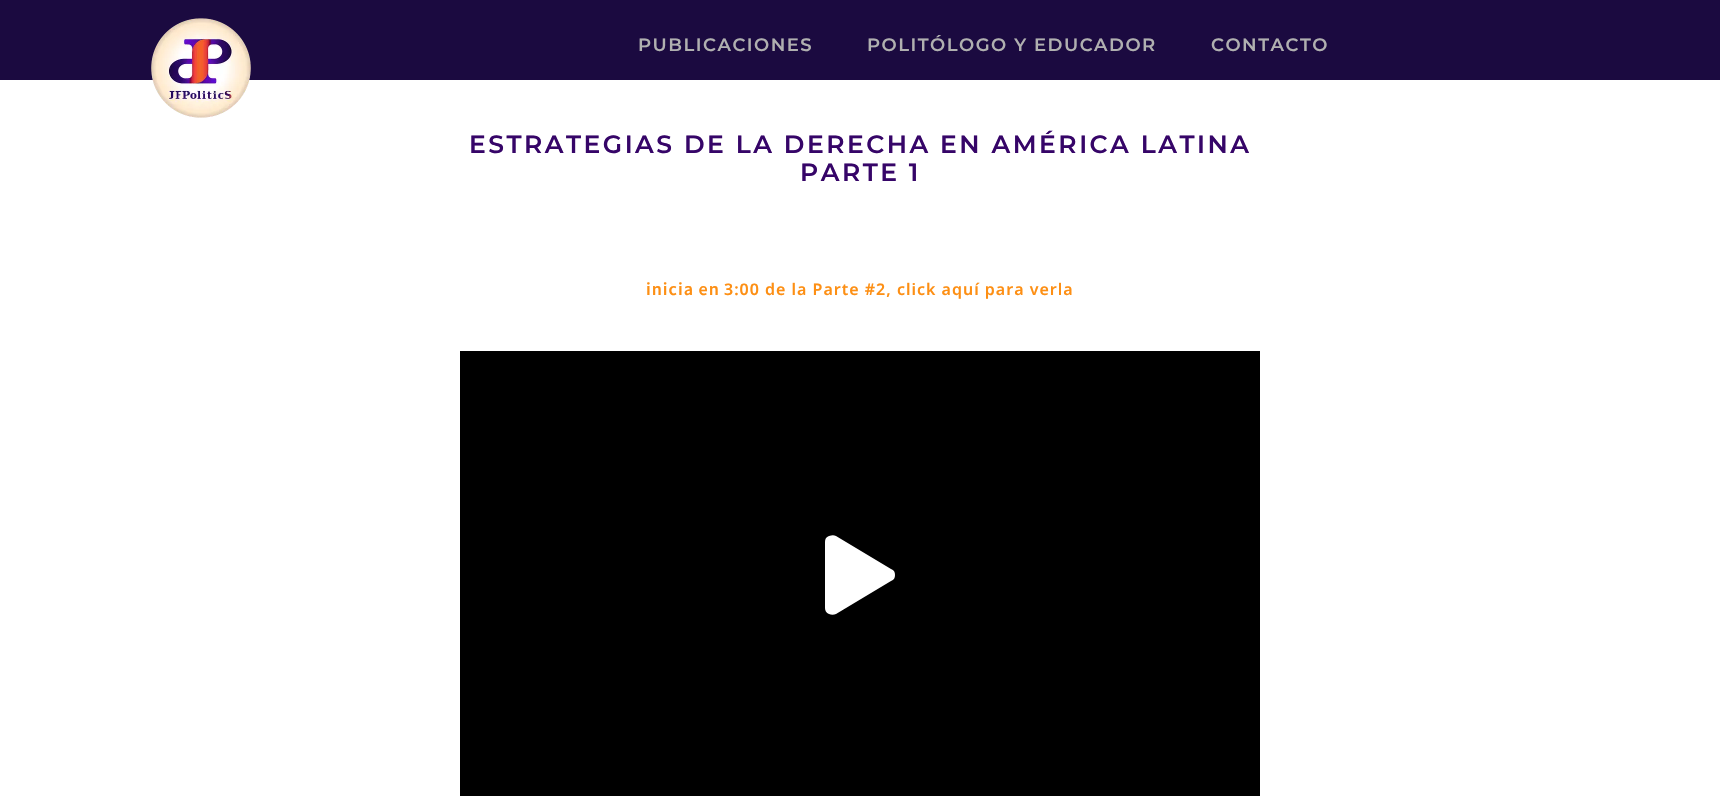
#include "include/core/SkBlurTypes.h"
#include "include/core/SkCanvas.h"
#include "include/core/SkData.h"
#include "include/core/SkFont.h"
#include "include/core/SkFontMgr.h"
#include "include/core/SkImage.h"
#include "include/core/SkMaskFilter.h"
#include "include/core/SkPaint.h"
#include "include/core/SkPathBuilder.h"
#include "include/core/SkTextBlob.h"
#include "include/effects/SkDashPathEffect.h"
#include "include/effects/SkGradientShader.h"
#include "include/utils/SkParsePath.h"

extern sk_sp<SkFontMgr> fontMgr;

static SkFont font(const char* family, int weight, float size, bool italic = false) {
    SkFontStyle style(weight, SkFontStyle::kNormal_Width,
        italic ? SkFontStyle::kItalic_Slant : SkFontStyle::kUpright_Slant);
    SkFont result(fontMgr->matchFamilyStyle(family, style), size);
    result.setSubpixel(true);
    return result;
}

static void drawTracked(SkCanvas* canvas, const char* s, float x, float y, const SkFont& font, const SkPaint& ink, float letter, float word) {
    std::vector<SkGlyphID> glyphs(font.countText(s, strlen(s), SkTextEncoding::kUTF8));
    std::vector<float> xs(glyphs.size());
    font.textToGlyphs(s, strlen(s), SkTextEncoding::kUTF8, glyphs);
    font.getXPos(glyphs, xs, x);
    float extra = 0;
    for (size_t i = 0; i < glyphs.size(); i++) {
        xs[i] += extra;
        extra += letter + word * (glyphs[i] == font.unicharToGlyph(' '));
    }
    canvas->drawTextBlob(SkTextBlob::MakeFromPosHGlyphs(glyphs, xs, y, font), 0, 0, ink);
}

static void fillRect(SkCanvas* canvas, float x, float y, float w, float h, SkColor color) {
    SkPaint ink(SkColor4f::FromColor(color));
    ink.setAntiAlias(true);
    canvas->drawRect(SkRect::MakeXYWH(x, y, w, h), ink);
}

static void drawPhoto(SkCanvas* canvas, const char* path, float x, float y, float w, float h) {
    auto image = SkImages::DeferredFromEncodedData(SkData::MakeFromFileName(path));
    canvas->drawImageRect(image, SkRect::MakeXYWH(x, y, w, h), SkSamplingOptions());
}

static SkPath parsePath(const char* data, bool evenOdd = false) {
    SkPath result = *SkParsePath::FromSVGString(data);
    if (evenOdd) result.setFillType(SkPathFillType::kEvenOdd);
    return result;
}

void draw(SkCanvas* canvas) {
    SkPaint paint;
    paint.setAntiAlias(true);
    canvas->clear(0xFFFFFFFF);
    fillRect(canvas, 0, 0, 1720, 80, 0xFF1B0A40);
    drawPhoto(canvas, "assets/img1.png", 151, 18, 100, 100);
    SkFont font1 = font("Montserrat", 600, 18);
    paint.setColor(0xFFB0B0B0);
    drawTracked(canvas, "PUBLICACIONES", 638, 51, font1, paint, 1.5f, 0);
    drawTracked(canvas, "POLITÓLOGO Y EDUCADOR", 867, 51, font1, paint, 1.5f, 0);
    drawTracked(canvas, "CONTACTO", 1211, 51, font1, paint, 1.5f, 0);
    SkFont font2 = font("Montserrat", 600, 25);
    paint.setColor(0xFF360568);
    drawTracked(canvas, "ESTRATEGIAS DE LA DERECHA EN AMÉRICA LATINA", 469, 153, font2, paint, 2.5f, 0);
    drawTracked(canvas, "PARTE 1", 800, 181, font2, paint, 2.5f, 0);
    SkFont font3 = font("Noto Sans JP", 600, 16);
    paint.setColor(0xFFFD8F14);
    drawTracked(canvas, "inicia en", 646, 295, font3, paint, 1, 0);
    SkFont font4 = font("Noto Sans", 600, 16);
    drawTracked(canvas, "3:00 de la Parte #2, click aquí para verla", 724, 295, font4, paint, 1, 0);
    fillRect(canvas, 460, 351, 800, 445, 0xFF000000);
    paint.setColor(0xFFFFFFFF);
    canvas->drawPath(parsePath("M891 569C894 570 895 572 895 575C895 578 894 580 891 581L836 614C834 615 831 615 829 614C826 613 825 610 825 608V542C825 539 826 537 829 536C832 535 834 535 836 536Z"), paint);
}
